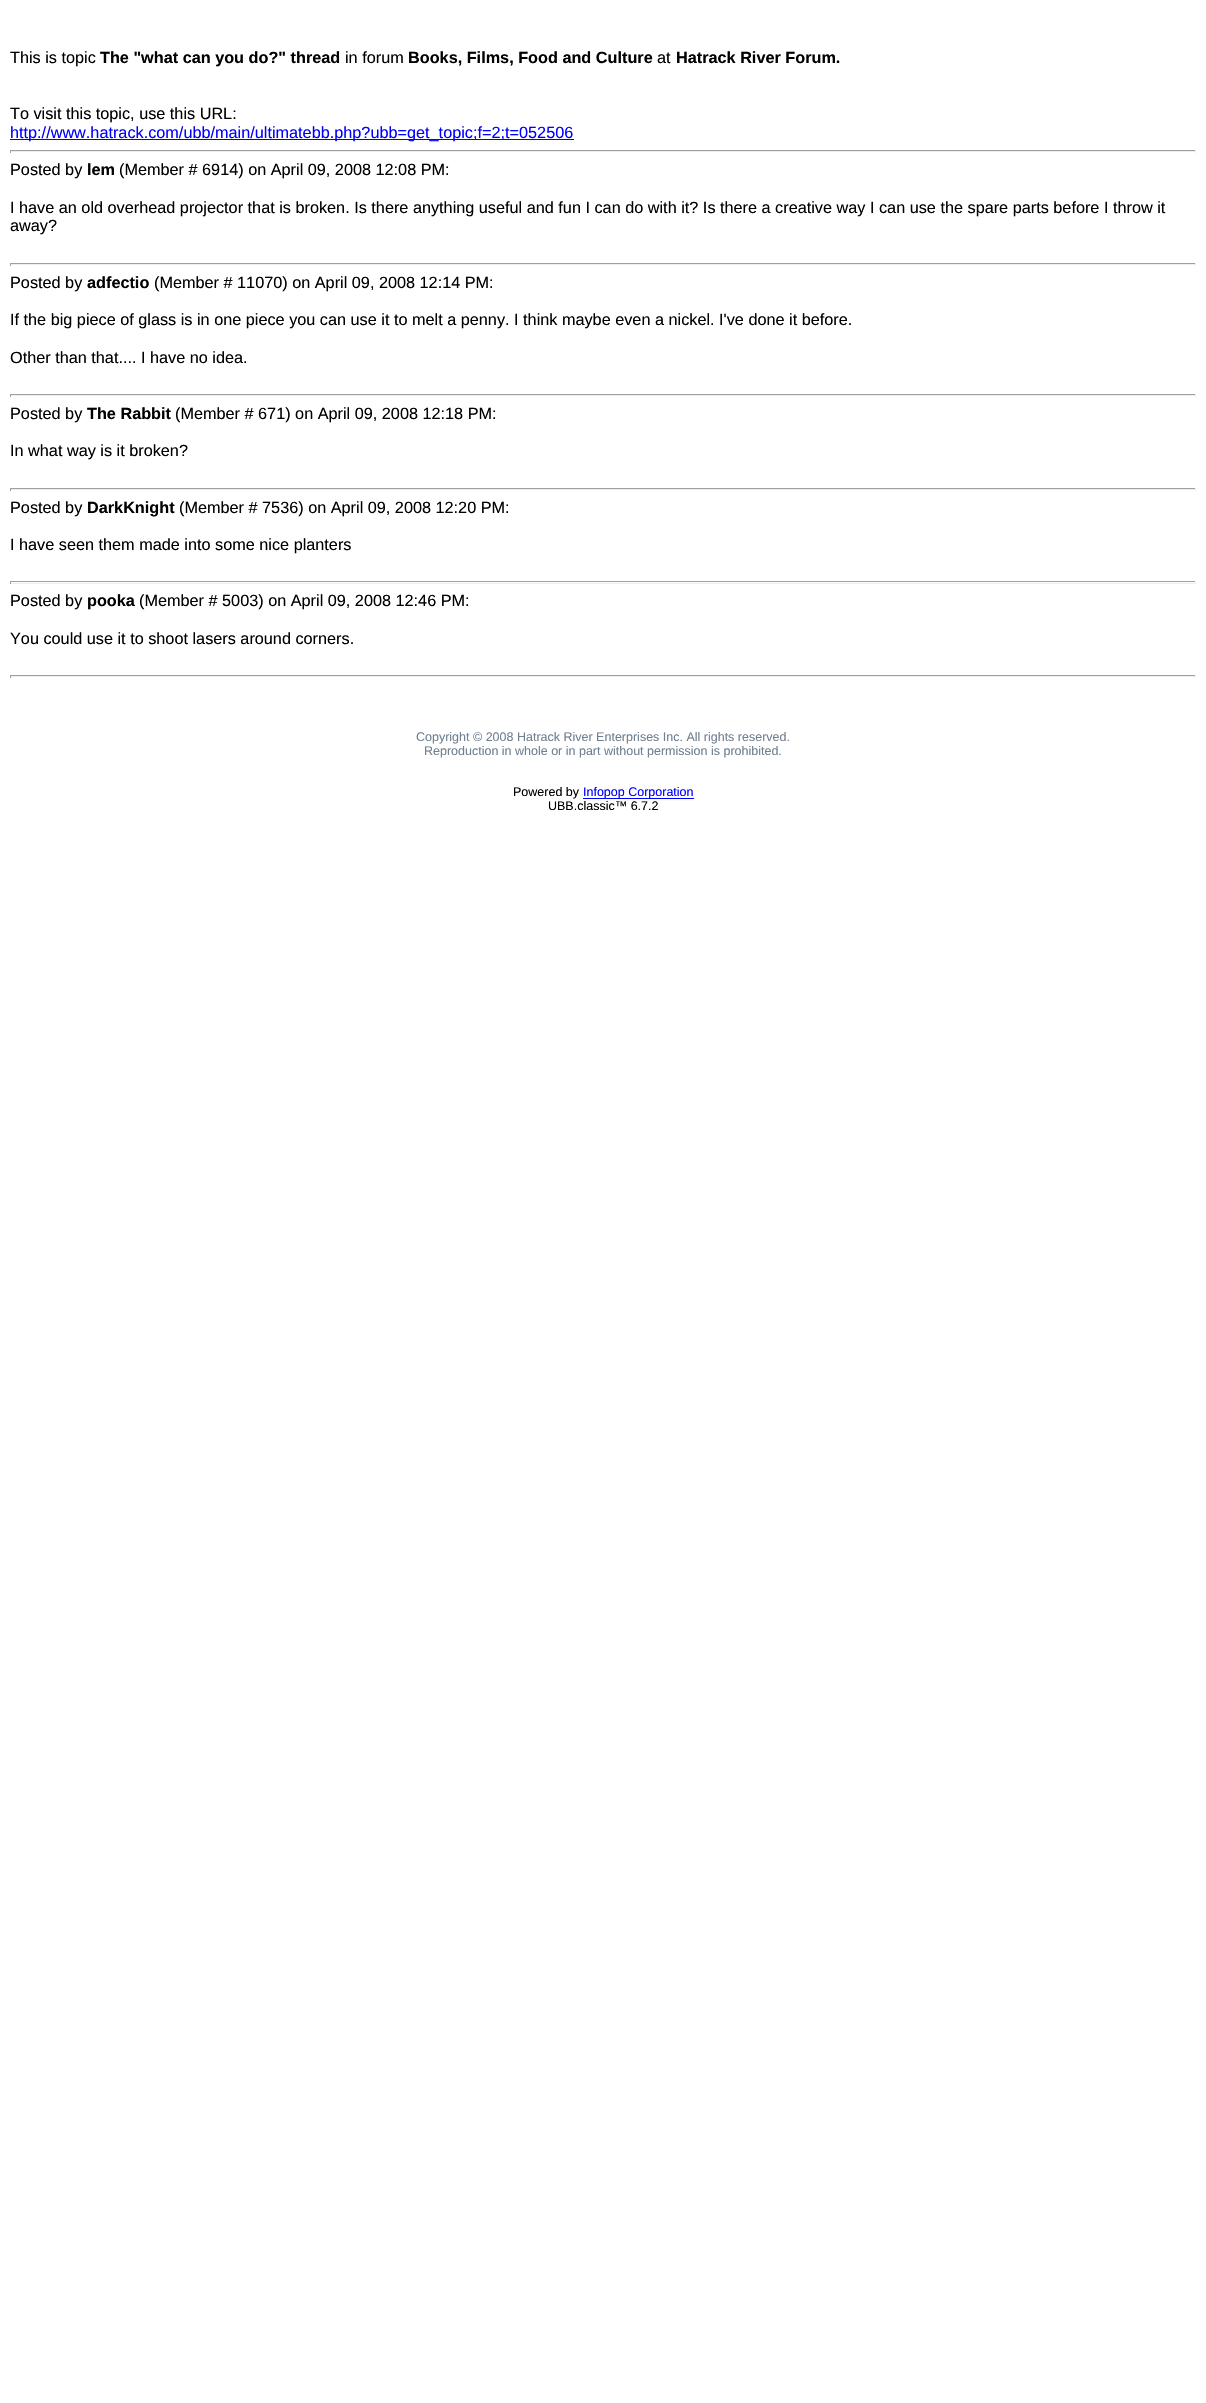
#include "include/core/SkBlurTypes.h"
#include "include/core/SkCanvas.h"
#include "include/core/SkData.h"
#include "include/core/SkFont.h"
#include "include/core/SkFontMgr.h"
#include "include/core/SkImage.h"
#include "include/core/SkMaskFilter.h"
#include "include/core/SkPaint.h"
#include "include/core/SkPathBuilder.h"
#include "include/core/SkTextBlob.h"
#include "include/effects/SkDashPathEffect.h"
#include "include/effects/SkGradientShader.h"
#include "include/utils/SkParsePath.h"

extern sk_sp<SkFontMgr> fontMgr;

static SkFont font(const char* family, int weight, float size, bool italic = false) {
    SkFontStyle style(weight, SkFontStyle::kNormal_Width,
        italic ? SkFontStyle::kItalic_Slant : SkFontStyle::kUpright_Slant);
    SkFont result(fontMgr->matchFamilyStyle(family, style), size);
    result.setSubpixel(true);
    return result;
}

static void drawLabel(SkCanvas* canvas, const char* s, float x, float y, const SkFont& font, SkColor color) {
    SkPaint ink(SkColor4f::FromColor(color));
    ink.setAntiAlias(true);
    canvas->drawString(s, x, y, font, ink);
}

static void fillRect(SkCanvas* canvas, float x, float y, float w, float h, SkColor color) {
    SkPaint ink(SkColor4f::FromColor(color));
    ink.setAntiAlias(true);
    canvas->drawRect(SkRect::MakeXYWH(x, y, w, h), ink);
}

void draw(SkCanvas* canvas) {
    SkPaint paint;
    paint.setAntiAlias(true);
    canvas->clear(0xFFFFFFFF);
    SkFont font1 = font("Liberation Sans", 400, 16.25f);
    drawLabel(canvas, "This is topic", 10, 63, font1, 0xFF000000);
    SkFont font2 = font("Liberation Sans", 700, 16.25f);
    drawLabel(canvas, "The \"what can you do?\" thread", 100, 63, font2, 0xFF000000);
    drawLabel(canvas, "in forum", 345, 63, font1, 0xFF000000);
    drawLabel(canvas, "Books, Films, Food and Culture", 408, 63, font2, 0xFF000000);
    drawLabel(canvas, "at", 657, 63, font1, 0xFF000000);
    drawLabel(canvas, "Hatrack River Forum.", 676, 63, font2, 0xFF000000);
    drawLabel(canvas, "To visit this topic, use this URL:", 10, 119, font1, 0xFF000000);
    fillRect(canvas, 10, 139, 564, 1, 0xFF0000FF);
    drawLabel(canvas, "http://www.hatrack.com/ubb/main/ultimatebb.php?ubb=get_topic;f=2;t=052506", 10, 138, font1, 0xFF0000FF);
    fillRect(canvas, 10, 150, 1186, 1, 0xFF9F9F9F);
    fillRect(canvas, 1195, 150, 1, 3, 0xFFEEEEEE);
    fillRect(canvas, 10, 151, 1186, 1, 0xFFEEEEEE);
    fillRect(canvas, 10, 150, 1, 3, 0xFF9F9F9F);
    drawLabel(canvas, "Posted by", 10, 175, font1, 0xFF000000);
    drawLabel(canvas, "lem", 87, 175, font2, 0xFF000000);
    drawLabel(canvas, "(Member # 6914) on April 09, 2008 12:08 PM:", 119, 175, font1, 0xFF000000);
    drawLabel(canvas, "I have an old overhead projector that is broken. Is there anything useful and fun I can do with it? Is there a creative way I can use the spare parts before I throw it", 10, 213, font1, 0xFF000000);
    drawLabel(canvas, "away?", 10, 231, font1, 0xFF000000);
    fillRect(canvas, 10, 263, 1186, 1, 0xFF9F9F9F);
    fillRect(canvas, 1195, 263, 1, 3, 0xFFEEEEEE);
    fillRect(canvas, 10, 264, 1186, 1, 0xFFEEEEEE);
    fillRect(canvas, 10, 263, 1, 3, 0xFF9F9F9F);
    drawLabel(canvas, "Posted by", 10, 288, font1, 0xFF000000);
    drawLabel(canvas, "adfectio", 87, 288, font2, 0xFF000000);
    drawLabel(canvas, "(Member # 11070) on April 09, 2008 12:14 PM:", 154, 288, font1, 0xFF000000);
    drawLabel(canvas, "If the big piece of glass is in one piece you can use it to melt a penny. I think maybe even a nickel. I've done it before.", 10, 325, font1, 0xFF000000);
    drawLabel(canvas, "Other than that.... I have no idea.", 10, 363, font1, 0xFF000000);
    fillRect(canvas, 10, 394, 1186, 1, 0xFF9F9F9F);
    fillRect(canvas, 1195, 394, 1, 3, 0xFFEEEEEE);
    fillRect(canvas, 10, 395, 1186, 1, 0xFFEEEEEE);
    fillRect(canvas, 10, 394, 1, 3, 0xFF9F9F9F);
    drawLabel(canvas, "Posted by", 10, 419, font1, 0xFF000000);
    drawLabel(canvas, "The Rabbit", 87, 419, font2, 0xFF000000);
    drawLabel(canvas, "(Member # 671) on April 09, 2008 12:18 PM:", 175, 419, font1, 0xFF000000);
    drawLabel(canvas, "In what way is it broken?", 10, 456, font1, 0xFF000000);
    fillRect(canvas, 10, 488, 1186, 1, 0xFF9F9F9F);
    fillRect(canvas, 1195, 488, 1, 3, 0xFFEEEEEE);
    fillRect(canvas, 10, 489, 1186, 1, 0xFFEEEEEE);
    fillRect(canvas, 10, 488, 1, 3, 0xFF9F9F9F);
    drawLabel(canvas, "Posted by", 10, 513, font1, 0xFF000000);
    drawLabel(canvas, "DarkKnight", 87, 513, font2, 0xFF000000);
    drawLabel(canvas, "(Member # 7536) on April 09, 2008 12:20 PM:", 179, 513, font1, 0xFF000000);
    drawLabel(canvas, "I have seen them made into some nice planters", 10, 550, font1, 0xFF000000);
    fillRect(canvas, 10, 581, 1186, 1, 0xFF9F9F9F);
    fillRect(canvas, 1195, 581, 1, 3, 0xFFEEEEEE);
    fillRect(canvas, 10, 583, 1186, 1, 0xFFEEEEEE);
    fillRect(canvas, 10, 581, 1, 3, 0xFF9F9F9F);
    drawLabel(canvas, "Posted by", 10, 606, font1, 0xFF000000);
    drawLabel(canvas, "pooka", 87, 606, font2, 0xFF000000);
    drawLabel(canvas, "(Member # 5003) on April 09, 2008 12:46 PM:", 139, 606, font1, 0xFF000000);
    drawLabel(canvas, "You could use it to shoot lasers around corners.", 10, 644, font1, 0xFF000000);
    fillRect(canvas, 10, 675, 1186, 1, 0xFF9F9F9F);
    fillRect(canvas, 1195, 675, 1, 3, 0xFFEEEEEE);
    fillRect(canvas, 10, 676, 1186, 1, 0xFFEEEEEE);
    fillRect(canvas, 10, 675, 1, 3, 0xFF9F9F9F);
    SkFont font3 = font("Liberation Sans", 400, 12.5f);
    drawLabel(canvas, "Copyright © 2008 Hatrack River Enterprises Inc. All rights reserved.", 416, 741, font3, 0xFF708090);
    drawLabel(canvas, "Reproduction in whole or in part without permission is prohibited.", 424, 755, font3, 0xFF708090);
    drawLabel(canvas, "Powered by", 513, 796, font3, 0xFF000000);
    fillRect(canvas, 583, 798, 111, 1, 0xFF0000FF);
    drawLabel(canvas, "Infopop Corporation", 583, 796, font3, 0xFF0000FF);
    drawLabel(canvas, "UBB.classic™ 6.7.2", 548, 810, font3, 0xFF000000);
}
